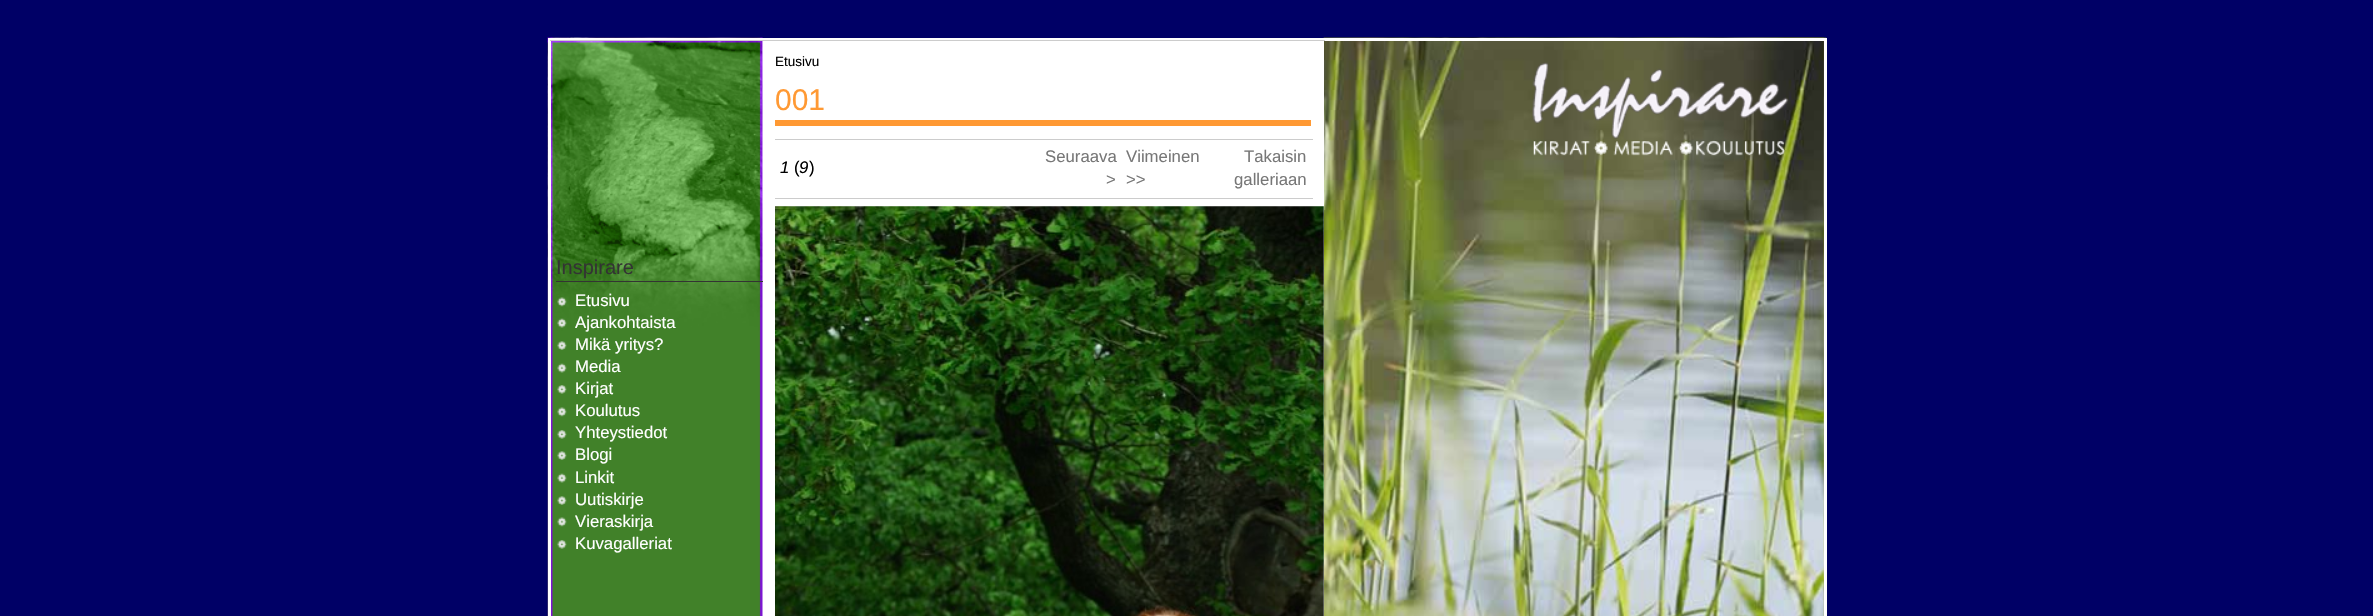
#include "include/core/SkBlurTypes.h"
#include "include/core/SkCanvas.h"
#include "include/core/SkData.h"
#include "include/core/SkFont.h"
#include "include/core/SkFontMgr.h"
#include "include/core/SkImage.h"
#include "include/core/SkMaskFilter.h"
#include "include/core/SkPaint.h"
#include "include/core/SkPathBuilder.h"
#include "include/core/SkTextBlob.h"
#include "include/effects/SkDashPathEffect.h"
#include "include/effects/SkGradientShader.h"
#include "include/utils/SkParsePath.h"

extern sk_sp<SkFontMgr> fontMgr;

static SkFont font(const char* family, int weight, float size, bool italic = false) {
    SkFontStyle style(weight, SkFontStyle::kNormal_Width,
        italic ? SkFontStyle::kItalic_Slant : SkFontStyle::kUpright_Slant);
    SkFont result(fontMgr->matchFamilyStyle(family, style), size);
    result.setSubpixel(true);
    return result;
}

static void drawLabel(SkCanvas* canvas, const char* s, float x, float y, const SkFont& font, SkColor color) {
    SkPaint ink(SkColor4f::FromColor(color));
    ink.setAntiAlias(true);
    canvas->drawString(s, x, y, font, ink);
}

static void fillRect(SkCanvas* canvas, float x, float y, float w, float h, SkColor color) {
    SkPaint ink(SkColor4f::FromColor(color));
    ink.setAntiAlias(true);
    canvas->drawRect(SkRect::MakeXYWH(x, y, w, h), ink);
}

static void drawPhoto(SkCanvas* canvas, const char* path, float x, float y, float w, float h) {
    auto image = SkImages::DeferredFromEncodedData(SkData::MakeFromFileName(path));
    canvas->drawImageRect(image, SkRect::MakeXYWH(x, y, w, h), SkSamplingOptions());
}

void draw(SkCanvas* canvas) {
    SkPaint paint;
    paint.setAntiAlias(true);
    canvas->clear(0xFF000066);
    drawPhoto(canvas, "assets/img2.png", 1323, 37, 504, 579);
    fillRect(canvas, 762, 41, 1, 575, 0xFFFFFFFF);
    drawPhoto(canvas, "assets/img4.png", 547, 37, 216, 579);
    fillRect(canvas, 548, 38, 215, 2, 0xFFFFFFFF);
    fillRect(canvas, 548, 38, 3, 578, 0xFFFFFFFF);
    fillRect(canvas, 550, 40, 214, 1, 0xFFCCCCCC);
    fillRect(canvas, 763, 38, 561, 578, 0xFFFFFFFF);
    fillRect(canvas, 1324, 38, 502, 3, 0xFFFFFFFF);
    fillRect(canvas, 763, 40, 562, 1, 0xFFCCCCCC);
    SkFont font1 = font("Liberation Sans", 400, 13.5f);
    drawLabel(canvas, "Etusivu", 775, 66, font1, 0xFF000000);
    fillRect(canvas, 775, 120, 536, 6, 0xFFFF9933);
    SkFont font2 = font("Liberation Sans", 400, 30);
    drawLabel(canvas, "001", 775, 110, font2, 0xFFFF9933);
    fillRect(canvas, 775, 139, 538, 1, 0xFFCCCCCC);
    fillRect(canvas, 775, 198, 538, 1, 0xFFCCCCCC);
    SkFont font3 = font("Liberation Sans", 400, 16.75f, true);
    drawLabel(canvas, "1", 780, 173, font3, 0xFF000000);
    SkFont font4 = font("Liberation Sans", 400, 16.75f);
    drawLabel(canvas, "(", 794, 173, font4, 0xFF000000);
    drawLabel(canvas, "9", 799, 173, font3, 0xFF000000);
    drawLabel(canvas, ")", 809, 173, font4, 0xFF000000);
    drawLabel(canvas, "Seuraava", 1045, 162, font4, 0xFF777777);
    drawLabel(canvas, ">", 1106, 185, font4, 0xFF777777);
    drawLabel(canvas, "Viimeinen", 1126, 162, font4, 0xFF777777);
    drawLabel(canvas, ">>", 1126, 185, font4, 0xFF777777);
    drawLabel(canvas, "Takaisin", 1244, 162, font4, 0xFF777777);
    drawLabel(canvas, "galleriaan", 1234, 185, font4, 0xFF777777);
    drawPhoto(canvas, "assets/img1.png", 775, 206, 549, 410);
    fillRect(canvas, 1824, 38, 3, 578, 0xFFFFFFFF);
    drawPhoto(canvas, "assets/img3.png", 1532, 62, 257, 94);
    fillRect(canvas, 556, 281, 207, 1, 0xFF333333);
    SkFont font5 = font("Liberation Sans", 400, 20);
    drawLabel(canvas, "Inspirare", 556, 274, font5, 0xFF333333);
    drawPhoto(canvas, "assets/img5.png", 557, 297, 10, 10);
    drawLabel(canvas, "Etusivu", 575, 306, font4, 0xFFFFFFFF);
    drawPhoto(canvas, "assets/img6.png", 557, 318, 10, 10);
    drawLabel(canvas, "Ajankohtaista", 575, 328, font4, 0xFFFFFFFF);
    drawPhoto(canvas, "assets/img7.png", 557, 341, 10, 9);
    drawLabel(canvas, "Mikä yritys?", 575, 350, font4, 0xFFFFFFFF);
    drawPhoto(canvas, "assets/img8.png", 557, 363, 10, 10);
    drawLabel(canvas, "Media", 575, 372, font4, 0xFFFFFFFF);
    drawPhoto(canvas, "assets/img9.png", 557, 385, 10, 9);
    drawLabel(canvas, "Kirjat", 575, 394, font4, 0xFFFFFFFF);
    drawPhoto(canvas, "assets/img10.png", 557, 407, 10, 10);
    drawLabel(canvas, "Koulutus", 575, 416, font4, 0xFFFFFFFF);
    drawPhoto(canvas, "assets/img9.png", 557, 430, 10, 9);
    drawLabel(canvas, "Yhteystiedot", 575, 438, font4, 0xFFFFFFFF);
    drawPhoto(canvas, "assets/img7.png", 557, 451, 10, 9);
    drawLabel(canvas, "Blogi", 575, 460, font4, 0xFFFFFFFF);
    drawPhoto(canvas, "assets/img8.png", 557, 473, 10, 10);
    drawLabel(canvas, "Linkit", 575, 483, font4, 0xFFFFFFFF);
    drawPhoto(canvas, "assets/img7.png", 557, 496, 10, 9);
    drawLabel(canvas, "Uutiskirje", 575, 505, font4, 0xFFFFFFFF);
    drawPhoto(canvas, "assets/img10.png", 557, 517, 10, 10);
    drawLabel(canvas, "Vieraskirja", 575, 527, font4, 0xFFFFFFFF);
    drawPhoto(canvas, "assets/img9.png", 557, 540, 10, 9);
    drawLabel(canvas, "Kuvagalleriat", 575, 549, font4, 0xFFFFFFFF);
}
